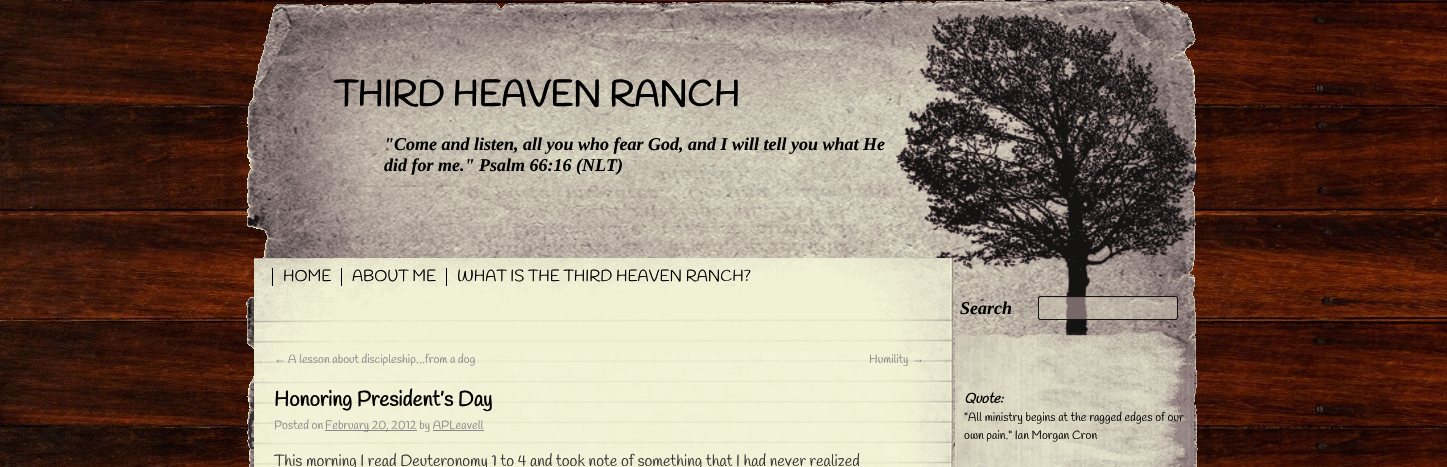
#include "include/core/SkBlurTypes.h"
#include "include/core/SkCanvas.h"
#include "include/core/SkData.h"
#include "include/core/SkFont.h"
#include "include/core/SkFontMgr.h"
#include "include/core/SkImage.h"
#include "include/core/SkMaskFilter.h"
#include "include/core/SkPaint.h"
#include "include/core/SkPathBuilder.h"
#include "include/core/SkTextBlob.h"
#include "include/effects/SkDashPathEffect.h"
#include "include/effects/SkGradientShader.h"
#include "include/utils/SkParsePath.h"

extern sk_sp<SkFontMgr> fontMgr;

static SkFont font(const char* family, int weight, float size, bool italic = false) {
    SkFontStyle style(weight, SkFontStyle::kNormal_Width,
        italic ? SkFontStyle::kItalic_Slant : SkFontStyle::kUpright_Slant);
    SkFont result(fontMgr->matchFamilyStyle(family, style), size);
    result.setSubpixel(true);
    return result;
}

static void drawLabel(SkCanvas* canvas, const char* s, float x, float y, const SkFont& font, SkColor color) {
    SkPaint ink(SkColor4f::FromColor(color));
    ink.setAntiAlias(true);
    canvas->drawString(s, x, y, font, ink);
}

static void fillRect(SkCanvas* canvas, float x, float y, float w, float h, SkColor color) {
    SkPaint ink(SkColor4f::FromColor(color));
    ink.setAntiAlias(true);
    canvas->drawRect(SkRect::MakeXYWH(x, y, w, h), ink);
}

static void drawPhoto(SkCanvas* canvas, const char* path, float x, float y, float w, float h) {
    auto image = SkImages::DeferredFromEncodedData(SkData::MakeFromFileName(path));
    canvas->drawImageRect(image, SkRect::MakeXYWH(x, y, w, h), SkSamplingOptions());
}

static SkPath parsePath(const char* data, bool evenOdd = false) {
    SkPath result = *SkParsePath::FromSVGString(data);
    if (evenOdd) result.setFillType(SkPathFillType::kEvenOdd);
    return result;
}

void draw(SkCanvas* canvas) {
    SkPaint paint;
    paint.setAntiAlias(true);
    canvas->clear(0xFFFFFFFF);
    drawPhoto(canvas, "assets/img1.png", 0, 0, 1447, 467);
    drawPhoto(canvas, "assets/img2.png", 246, 0, 952, 351);
    SkFont font1 = font("Handlee", 700, 36);
    drawLabel(canvas, "THIRD HEAVEN RANCH", 334, 106, font1, 0xFF000000);
    SkFont font2 = font("Liberation Serif", 700, 18, true);
    drawLabel(canvas, "\"Come and listen, all you who fear God, and I will tell you what He", 384, 150, font2, 0xFF000000);
    drawLabel(canvas, "did for me.\" Psalm 66:16 (NLT)", 384, 171, font2, 0xFF000000);
    fillRect(canvas, 272, 268, 1, 18, 0xFF000000);
    SkFont font3 = font("Handlee", 400, 16);
    drawLabel(canvas, "HOME", 283, 281, font3, 0xFF000000);
    fillRect(canvas, 341, 268, 1, 18, 0xFF000000);
    drawLabel(canvas, "ABOUT ME", 352, 281, font3, 0xFF000000);
    fillRect(canvas, 446, 268, 1, 18, 0xFF000000);
    drawLabel(canvas, "WHAT IS THE THIRD HEAVEN RANCH?", 457, 281, font3, 0xFF000000);
    drawLabel(canvas, "Search", 960, 314, font2, 0xFF000000);
    canvas->save();
    canvas->clipRect(SkRect::MakeXYWH(1020, 297, 134, 22));
    paint.setColor(0x1A000000);
    canvas->drawPath(parsePath("M921 198H1253V418H921ZM1021 298H1155V320H1021Z", true), paint);
    canvas->restore();
    drawPhoto(canvas, "assets/img3.png", 247, 351, 951, 116);
    SkFont font4 = font("Liberation Serif", 400, 12);
    drawLabel(canvas, "←", 274, 363, font4, 0xFF888888);
    SkFont font5 = font("Handlee", 400, 12);
    drawLabel(canvas, "A lesson about discipleship…from a dog", 288, 363, font5, 0xFF888888);
    drawLabel(canvas, "Humility", 869, 363, font5, 0xFF888888);
    drawLabel(canvas, "→", 912, 363, font4, 0xFF888888);
    SkFont font6 = font("Handlee", 700, 21);
    drawLabel(canvas, "Honoring President’s Day", 274, 406, font6, 0xFF000000);
    drawLabel(canvas, "Posted on", 274, 429, font5, 0xFF888888);
    fillRect(canvas, 325, 430, 92, 1, 0xFF888888);
    drawLabel(canvas, "February 20, 2012 by APLeavell", 325, 429, font5, 0xFF888888);
    fillRect(canvas, 433, 430, 51, 1, 0xFF888888);
    drawLabel(canvas, "This morning I read Deuteronomy 1 to 4 and took note of something that I had never realized", 274, 466, font3, 0xFF333333);
    SkFont font7 = font("Handlee", 700, 14, true);
    drawLabel(canvas, "Quote:", 964, 403, font7, 0xFF000000);
    drawLabel(canvas, "\"All ministry begins at the ragged edges of our", 964, 421, font5, 0xFF000000);
    drawLabel(canvas, "own pain.\" Ian Morgan Cron", 964, 439, font5, 0xFF000000);
}
